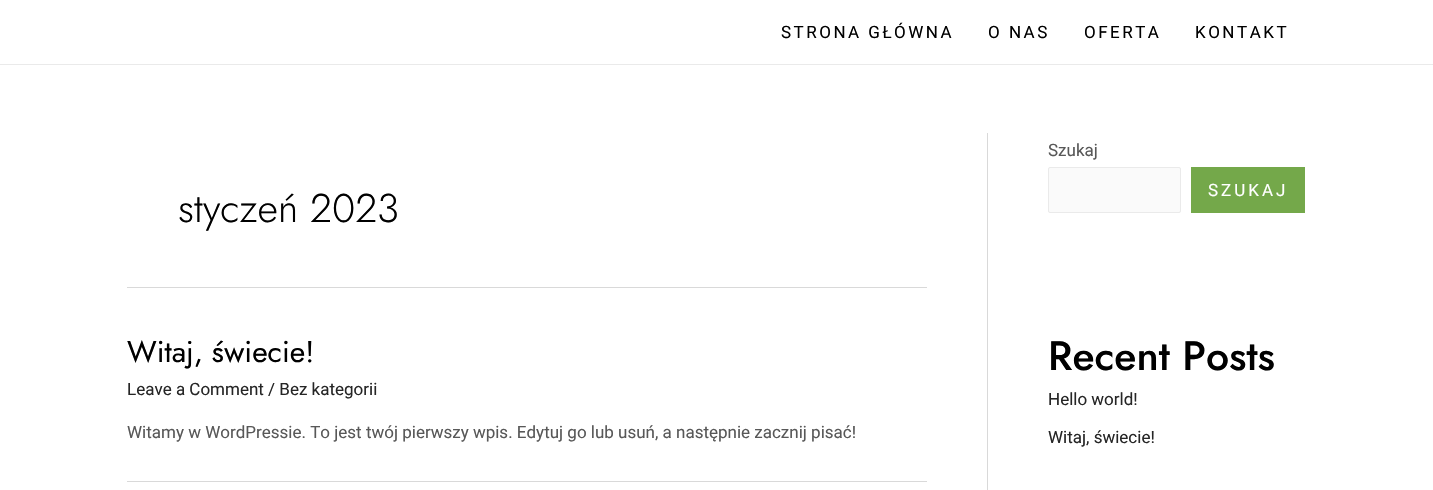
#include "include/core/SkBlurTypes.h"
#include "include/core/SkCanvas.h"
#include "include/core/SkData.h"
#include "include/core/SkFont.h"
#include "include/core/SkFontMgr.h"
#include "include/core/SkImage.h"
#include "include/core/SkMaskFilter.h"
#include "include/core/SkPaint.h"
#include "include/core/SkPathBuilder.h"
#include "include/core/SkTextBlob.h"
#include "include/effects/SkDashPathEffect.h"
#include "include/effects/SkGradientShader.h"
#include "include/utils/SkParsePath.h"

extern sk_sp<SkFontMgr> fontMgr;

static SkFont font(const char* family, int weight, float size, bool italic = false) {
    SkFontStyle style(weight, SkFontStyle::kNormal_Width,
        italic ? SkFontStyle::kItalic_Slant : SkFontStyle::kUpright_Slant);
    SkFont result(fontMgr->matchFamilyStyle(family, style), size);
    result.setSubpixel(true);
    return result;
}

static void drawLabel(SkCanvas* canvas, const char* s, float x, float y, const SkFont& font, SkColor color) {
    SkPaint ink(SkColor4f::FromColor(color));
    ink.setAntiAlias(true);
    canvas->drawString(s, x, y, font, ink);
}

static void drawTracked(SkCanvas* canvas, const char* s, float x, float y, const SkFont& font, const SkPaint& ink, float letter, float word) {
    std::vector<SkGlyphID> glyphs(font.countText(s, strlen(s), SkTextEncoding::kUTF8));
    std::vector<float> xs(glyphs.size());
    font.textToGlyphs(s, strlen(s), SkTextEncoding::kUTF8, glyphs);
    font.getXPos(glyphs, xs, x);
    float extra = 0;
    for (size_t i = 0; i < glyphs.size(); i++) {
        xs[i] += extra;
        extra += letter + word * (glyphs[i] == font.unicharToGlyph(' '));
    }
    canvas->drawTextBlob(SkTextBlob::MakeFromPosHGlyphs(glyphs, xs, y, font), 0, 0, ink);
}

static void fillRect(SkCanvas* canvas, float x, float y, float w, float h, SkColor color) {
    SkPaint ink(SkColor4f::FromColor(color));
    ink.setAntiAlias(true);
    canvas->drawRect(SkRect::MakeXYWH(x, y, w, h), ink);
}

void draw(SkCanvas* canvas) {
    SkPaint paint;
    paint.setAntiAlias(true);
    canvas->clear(0xFFFFFFFF);
    fillRect(canvas, 0, 64, 1433, 1, 0xFFEAEAEA);
    SkFont font1 = font("Roboto", 400, 17);
    paint.setColor(0xFF000000);
    drawTracked(canvas, "STRONA GŁÓWNA", 781, 38, font1, paint, 2.5f, 0);
    drawTracked(canvas, "O NAS", 988, 38, font1, paint, 2.5f, 0);
    drawTracked(canvas, "OFERTA", 1084, 38, font1, paint, 2.5f, 0);
    drawTracked(canvas, "KONTAKT", 1195, 38, font1, paint, 2.5f, 0);
    fillRect(canvas, 987, 133, 1, 357, 0xFFD9D9D9);
    fillRect(canvas, 127, 287, 800, 1, 0xFFD9D9D9);
    SkFont font2 = font("Jost", 300, 40);
    drawLabel(canvas, "styczeń 2023", 178, 222, font2, 0xFF000000);
    fillRect(canvas, 127, 481, 800, 1, 0xFFD9D9D9);
    SkFont font3 = font("Jost", 400, 30);
    drawLabel(canvas, "Witaj, świecie!", 127, 362, font3, 0xFF000000);
    drawLabel(canvas, "Leave a Comment / Bez kategorii", 127, 395, font1, 0xFF262626);
    drawLabel(canvas, "Witamy w WordPressie. To jest twój pierwszy wpis. Edytuj go lub usuń, a następnie zacznij pisać!", 127, 438, font1, 0xFF585858);
    drawLabel(canvas, "Szukaj", 1048, 156, font1, 0xFF585858);
    paint.setColor(0xFFFAFAFA);
    canvas->drawRoundRect(SkRect::MakeXYWH(1048.5f, 167.5f, 132, 45), 1.5f, 1.5f, paint);
    paint.setStroke(true);
    paint.setStrokeWidth(1);
    paint.setColor(0xFFEAEAEA);
    canvas->drawRoundRect(SkRect::MakeXYWH(1048.5f, 167.5f, 132, 45), 1.5f, 1.5f, paint);
    fillRect(canvas, 1191, 167, 114, 46, 0xFF74A84A);
    paint.setStroke(false);
    paint.setColor(0xFFFFFFFF);
    drawTracked(canvas, "SZUKAJ", 1208, 196, font1, paint, 3, 0);
    SkFont font4 = font("Jost", 500, 41);
    drawLabel(canvas, "Recent Posts", 1048, 370, font4, 0xFF000000);
    drawLabel(canvas, "Hello world!", 1048, 405, font1, 0xFF262626);
    drawLabel(canvas, "Witaj, świecie!", 1048, 443, font1, 0xFF262626);
}
